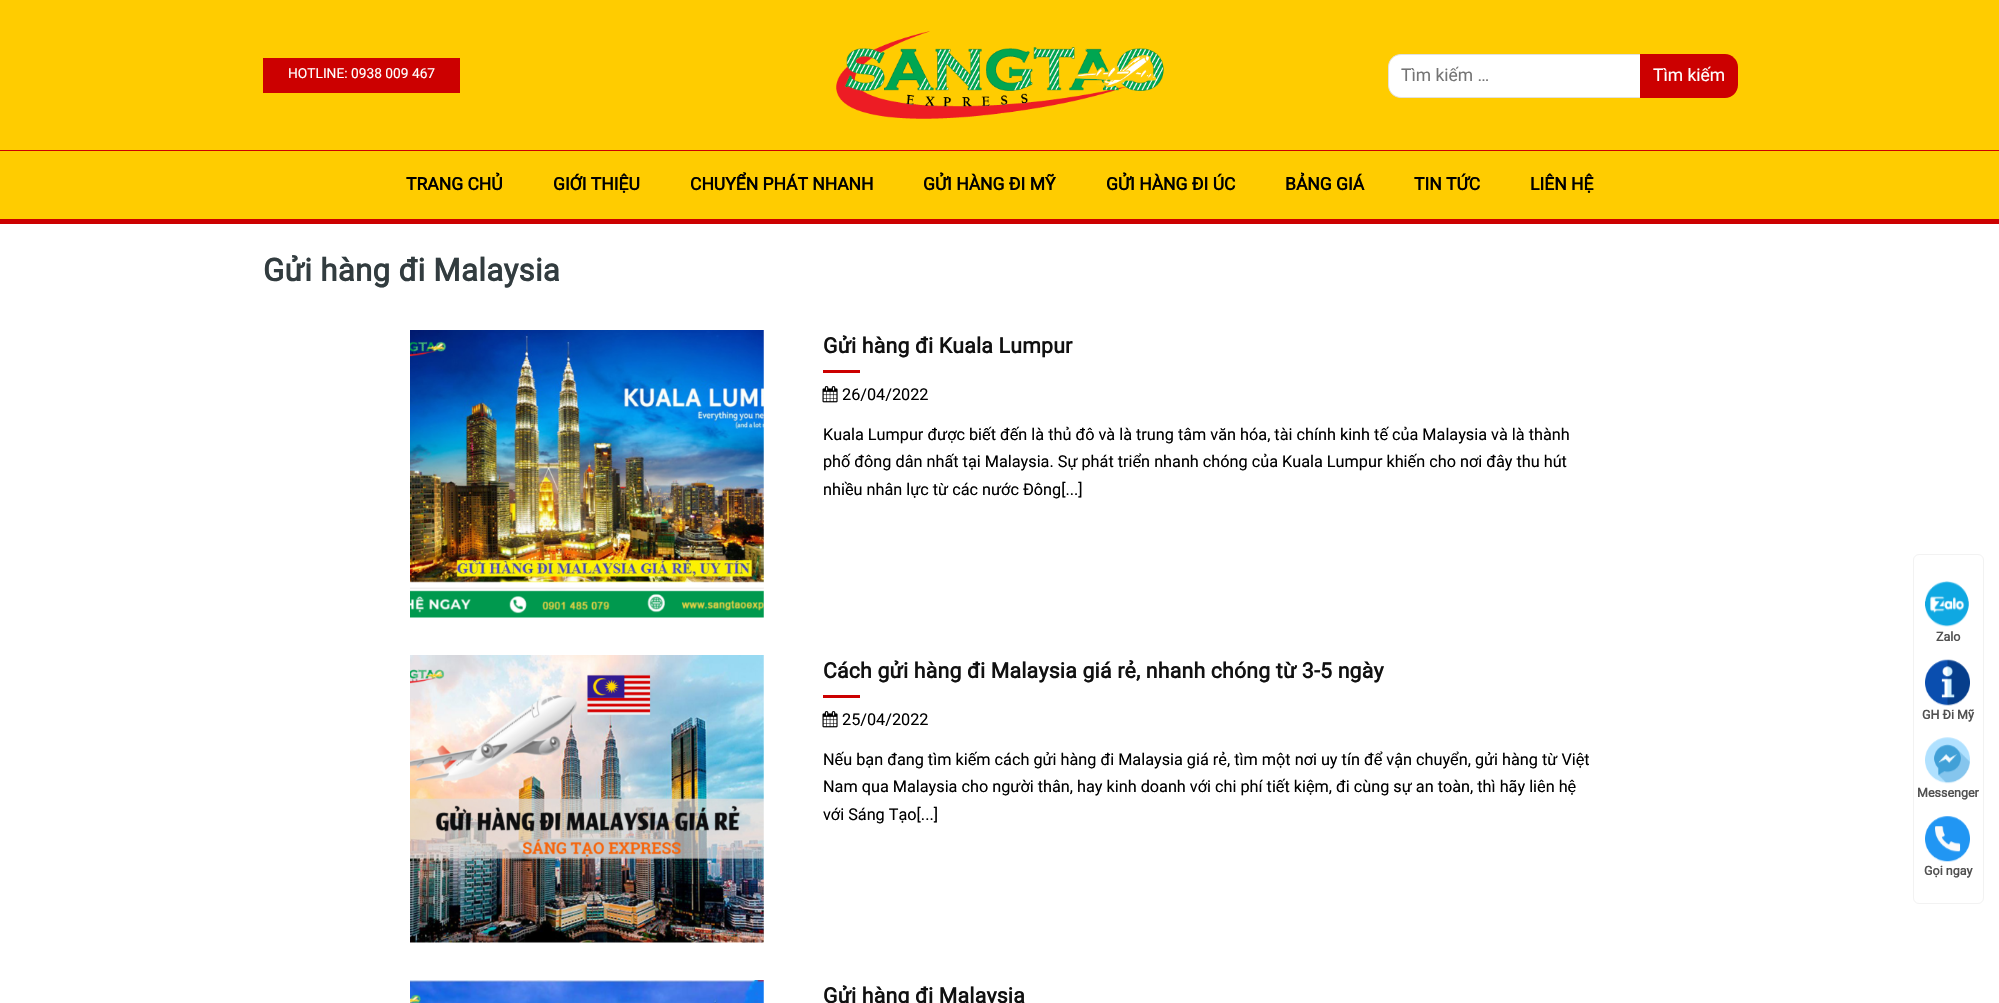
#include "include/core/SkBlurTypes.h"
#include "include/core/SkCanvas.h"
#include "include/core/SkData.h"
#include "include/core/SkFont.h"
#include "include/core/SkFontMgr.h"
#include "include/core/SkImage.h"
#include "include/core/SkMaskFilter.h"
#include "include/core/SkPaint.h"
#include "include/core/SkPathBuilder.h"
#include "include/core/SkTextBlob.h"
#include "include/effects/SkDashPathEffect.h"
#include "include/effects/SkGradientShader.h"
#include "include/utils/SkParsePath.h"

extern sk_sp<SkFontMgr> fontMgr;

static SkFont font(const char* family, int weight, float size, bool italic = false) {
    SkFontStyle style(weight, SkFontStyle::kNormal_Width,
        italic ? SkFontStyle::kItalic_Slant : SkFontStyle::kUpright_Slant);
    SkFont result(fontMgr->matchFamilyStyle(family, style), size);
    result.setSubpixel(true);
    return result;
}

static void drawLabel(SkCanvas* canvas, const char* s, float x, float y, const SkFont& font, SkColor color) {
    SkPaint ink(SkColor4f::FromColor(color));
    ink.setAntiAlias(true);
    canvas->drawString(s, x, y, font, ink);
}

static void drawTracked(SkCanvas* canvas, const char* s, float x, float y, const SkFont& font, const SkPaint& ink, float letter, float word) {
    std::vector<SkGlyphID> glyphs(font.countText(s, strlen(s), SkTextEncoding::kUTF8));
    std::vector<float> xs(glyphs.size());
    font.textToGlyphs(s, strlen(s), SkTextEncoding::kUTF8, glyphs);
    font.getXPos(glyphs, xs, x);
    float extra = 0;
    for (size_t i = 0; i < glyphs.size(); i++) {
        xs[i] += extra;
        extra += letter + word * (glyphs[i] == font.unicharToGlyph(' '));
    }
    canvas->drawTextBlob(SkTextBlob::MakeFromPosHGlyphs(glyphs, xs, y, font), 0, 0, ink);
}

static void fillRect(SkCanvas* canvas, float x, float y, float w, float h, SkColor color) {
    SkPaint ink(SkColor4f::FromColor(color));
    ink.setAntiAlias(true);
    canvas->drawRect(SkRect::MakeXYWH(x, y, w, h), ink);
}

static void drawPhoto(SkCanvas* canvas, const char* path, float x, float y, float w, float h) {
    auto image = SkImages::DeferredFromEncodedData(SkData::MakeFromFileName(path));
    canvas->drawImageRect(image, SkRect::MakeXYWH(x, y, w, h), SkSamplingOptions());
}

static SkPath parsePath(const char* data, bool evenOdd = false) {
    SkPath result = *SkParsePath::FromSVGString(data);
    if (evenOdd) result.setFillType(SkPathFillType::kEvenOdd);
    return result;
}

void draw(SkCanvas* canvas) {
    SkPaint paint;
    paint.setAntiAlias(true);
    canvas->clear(0xFFFFFFFF);
    fillRect(canvas, 0, 0, 1999, 150, 0xFFFFCC00);
    fillRect(canvas, 263, 58, 197, 35, 0xFFCC0000);
    SkFont font1 = font("Roboto", 400, 13.75f);
    drawLabel(canvas, "HOTLINE: 0938 009 467", 288, 78, font1, 0xFFFFFFFF);
    drawPhoto(canvas, "assets/img1.png", 836, 31, 328, 88);
    paint.setColor(0xFFFFFFFF);
    canvas->drawPath(parsePath("M1401 54.5H1640.5V97.5H1401C1394 97.5 1388.5 92 1388.5 85V67C1388.5 60 1394 54.5 1401 54.5Z"), paint);
    paint.setStroke(true);
    paint.setStrokeWidth(1);
    paint.setColor(0xFFE1E1E1);
    canvas->drawPath(parsePath("M1401 54.5H1640.5V97.5H1401C1394 97.5 1388.5 92 1388.5 85V67C1388.5 60 1394 54.5 1401 54.5Z"), paint);
    SkFont font2 = font("Roboto", 400, 17.5f);
    drawLabel(canvas, "Tìm kiếm …", 1401, 81, font2, 0xFF757575);
    paint.setStroke(false);
    paint.setColor(0xFFCC0000);
    canvas->drawPath(parsePath("M1640 54H1725C1732 54 1738 60 1738 67V85C1738 92 1732 98 1725 98H1640Z"), paint);
    drawLabel(canvas, "Tìm kiếm", 1653, 81, font2, 0xFFFFFFFF);
    fillRect(canvas, 0, 151, 1999, 68, 0xFFFFCC00);
    fillRect(canvas, 0, 150, 1999, 1, 0xFFCC0000);
    fillRect(canvas, 0, 219, 1999, 5, 0xFFCC0000);
    SkFont font3 = font("Roboto", 700, 17.5f);
    drawLabel(canvas, "TRANG CHỦ", 406, 190, font3, 0xFF000000);
    drawLabel(canvas, "GIỚI THIỆU", 553, 190, font3, 0xFF000000);
    drawLabel(canvas, "CHUYỂN PHÁT NHANH", 690, 190, font3, 0xFF000000);
    drawLabel(canvas, "GỬI HÀNG ĐI MỸ", 923, 190, font3, 0xFF000000);
    drawLabel(canvas, "GỬI HÀNG ĐI ÚC", 1106, 190, font3, 0xFF000000);
    drawLabel(canvas, "BẢNG GIÁ", 1285, 190, font3, 0xFF000000);
    drawLabel(canvas, "TIN TỨC", 1414, 190, font3, 0xFF000000);
    drawLabel(canvas, "LIÊN HỆ", 1530, 190, font3, 0xFF000000);
    SkFont font4 = font("Roboto", 700, 31.25f);
    paint.setColor(0xFF323C3F);
    drawTracked(canvas, "Gửi hàng đi Malaysia", 263, 281, font4, paint, 0.3f, 0);
    drawPhoto(canvas, "assets/img2.png", 410, 330, 354, 288);
    SkFont font5 = font("Roboto", 700, 21.25f);
    paint.setColor(0xFF111111);
    drawTracked(canvas, "Gửi hàng đi Kuala Lumpur", 823, 353, font5, paint, 0.2f, 0);
    fillRect(canvas, 823, 370, 37, 3, 0xFFCC0000);
    drawPhoto(canvas, "assets/img3.png", 822, 386, 16, 17);
    SkFont font6 = font("Roboto", 400, 16.25f);
    drawLabel(canvas, "26/04/2022", 842, 400, font6, 0xFF000000);
    drawLabel(canvas, "Kuala Lumpur được biết đến là thủ đô và là trung tâm văn hóa, tài chính kinh tế của Malaysia và là thành", 823, 440, font6, 0xFF000000);
    drawLabel(canvas, "phố đông dân nhất tại Malaysia. Sự phát triển nhanh chóng của Kuala Lumpur khiến cho nơi đây thu hút", 823, 467, font6, 0xFF000000);
    drawLabel(canvas, "nhiều nhân lực từ các nước Đông[...]", 823, 495, font6, 0xFF000000);
    drawPhoto(canvas, "assets/img4.png", 410, 655, 354, 288);
    drawTracked(canvas, "Cách gửi hàng đi Malaysia giá rẻ, nhanh chóng từ 3-5 ngày", 823, 678, font5, paint, 0.2f, 0);
    fillRect(canvas, 823, 695, 37, 3, 0xFFCC0000);
    drawPhoto(canvas, "assets/img3.png", 822, 711, 16, 17);
    drawLabel(canvas, "25/04/2022", 842, 725, font6, 0xFF000000);
    drawLabel(canvas, "Nếu bạn đang tìm kiếm cách gửi hàng đi Malaysia giá rẻ, tìm một nơi uy tín để vận chuyển, gửi hàng từ Việt", 823, 765, font6, 0xFF000000);
    drawLabel(canvas, "Nam qua Malaysia cho người thân, hay kinh doanh với chi phí tiết kiệm, đi cùng sự an toàn, thì hãy liên hệ", 823, 792, font6, 0xFF000000);
    drawLabel(canvas, "với Sáng Tạo[...]", 823, 820, font6, 0xFF000000);
    drawPhoto(canvas, "assets/img5.png", 410, 980, 354, 23);
    drawTracked(canvas, "Gửi hàng đi Malaysia", 823, 1003, font5, paint, 0.2f, 0);
    paint.setStroke(true);
    paint.setColor(0xFFF2F2F2);
    canvas->drawRoundRect(SkRect::MakeXYWH(1913.5f, 554.5f, 70, 349), 5.5f, 5.5f, paint);
    drawPhoto(canvas, "assets/img6.png", 1925, 581, 44, 46);
    SkFont font7 = font("Roboto", 700, 12.5f);
    drawLabel(canvas, "Zalo", 1936, 641, font7, 0xFF515151);
    drawPhoto(canvas, "assets/img7.png", 1925, 659, 45, 47);
    drawLabel(canvas, "GH Đi Mỹ", 1922, 719, font7, 0xFF515151);
    drawPhoto(canvas, "assets/img8.png", 1925, 737, 45, 47);
    drawLabel(canvas, "Messenger", 1917, 797, font7, 0xFF515151);
    drawPhoto(canvas, "assets/img9.png", 1925, 816, 45, 46);
    drawLabel(canvas, "Gọi ngay", 1924, 875, font7, 0xFF515151);
}
